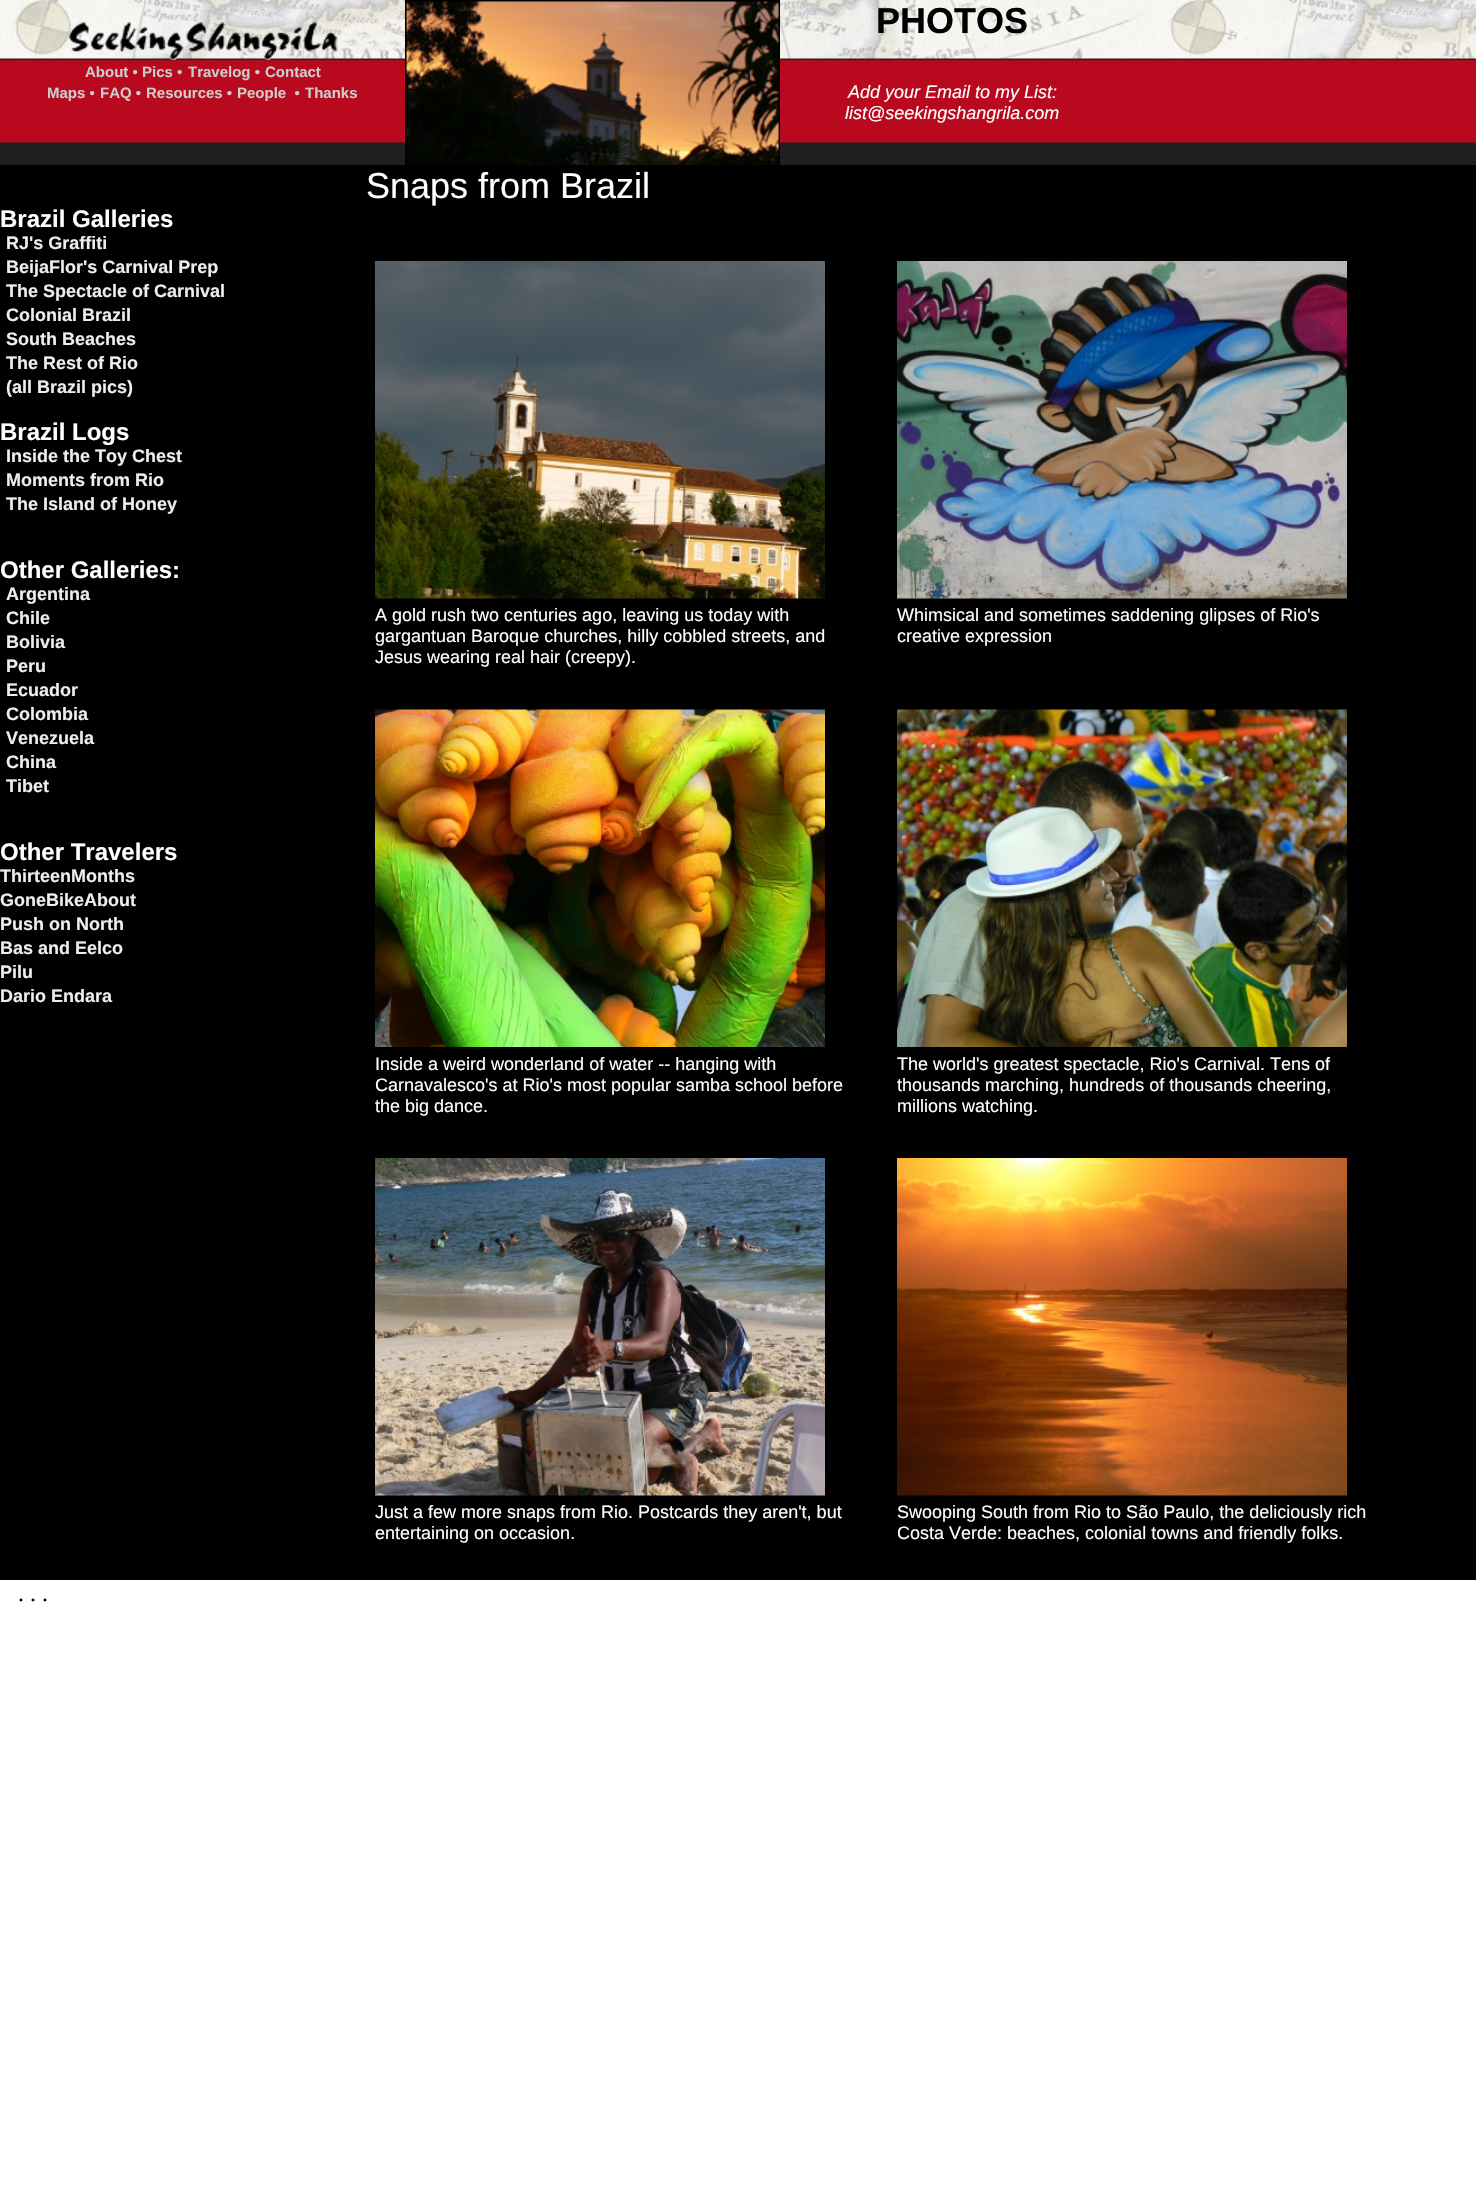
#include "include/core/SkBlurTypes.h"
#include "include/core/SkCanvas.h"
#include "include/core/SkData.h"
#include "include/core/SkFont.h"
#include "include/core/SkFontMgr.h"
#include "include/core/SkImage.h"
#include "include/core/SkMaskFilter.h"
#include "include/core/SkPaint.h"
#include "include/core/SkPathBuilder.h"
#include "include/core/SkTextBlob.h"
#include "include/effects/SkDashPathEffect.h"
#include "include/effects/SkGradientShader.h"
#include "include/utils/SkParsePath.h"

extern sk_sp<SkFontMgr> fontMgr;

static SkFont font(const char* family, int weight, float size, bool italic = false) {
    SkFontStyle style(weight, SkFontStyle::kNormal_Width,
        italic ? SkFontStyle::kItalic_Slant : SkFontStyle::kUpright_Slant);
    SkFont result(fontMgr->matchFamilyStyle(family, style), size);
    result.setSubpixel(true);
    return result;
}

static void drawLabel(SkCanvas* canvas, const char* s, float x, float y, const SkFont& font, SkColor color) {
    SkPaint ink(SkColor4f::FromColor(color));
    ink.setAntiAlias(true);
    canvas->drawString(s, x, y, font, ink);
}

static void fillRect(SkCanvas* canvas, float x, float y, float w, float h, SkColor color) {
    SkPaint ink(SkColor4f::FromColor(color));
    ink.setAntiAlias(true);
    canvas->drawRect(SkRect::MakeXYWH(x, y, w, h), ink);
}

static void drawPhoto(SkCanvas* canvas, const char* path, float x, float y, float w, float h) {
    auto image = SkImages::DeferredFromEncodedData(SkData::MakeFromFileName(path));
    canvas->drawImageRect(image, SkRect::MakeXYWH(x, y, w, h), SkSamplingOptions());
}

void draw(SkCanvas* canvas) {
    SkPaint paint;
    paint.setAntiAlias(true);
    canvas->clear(0xFFFFFFFF);
    drawPhoto(canvas, "assets/img1.png", 0, 0, 1476, 165);
    drawPhoto(canvas, "assets/img2.png", 69, 22, 269, 38);
    SkFont font1 = font("Liberation Sans", 700, 15);
    drawLabel(canvas, "About •", 85, 77, font1, 0xFFCCCCCC);
    drawLabel(canvas, "Pics •", 142, 77, font1, 0xFFCCCCCC);
    drawLabel(canvas, "Travelog •", 188, 77, font1, 0xFFCCCCCC);
    drawLabel(canvas, "Contact", 265, 77, font1, 0xFFCCCCCC);
    drawLabel(canvas, "Maps •", 47, 98, font1, 0xFFCCCCCC);
    drawLabel(canvas, "FAQ •", 100, 98, font1, 0xFFCCCCCC);
    drawLabel(canvas, "Resources •", 146, 98, font1, 0xFFCCCCCC);
    drawLabel(canvas, "People  •", 237, 98, font1, 0xFFCCCCCC);
    drawLabel(canvas, "Thanks", 305, 98, font1, 0xFFCCCCCC);
    drawPhoto(canvas, "assets/img3.png", 405, 0, 375, 165);
    SkFont font2 = font("Liberation Sans", 700, 36);
    drawLabel(canvas, "PHOTOS", 876, 33, font2, 0xFF000000);
    SkFont font3 = font("Liberation Sans", 400, 18, true);
    drawLabel(canvas, "Add your Email to my List:", 848, 98, font3, 0xFFFFFFFF);
    drawLabel(canvas, "list@seekingshangrila.com", 845, 119, font3, 0xFFFFFFFF);
    fillRect(canvas, 0, 165, 1476, 1415, 0xFF000000);
    SkFont font4 = font("Liberation Sans", 700, 24);
    drawLabel(canvas, "Brazil Galleries", 0, 227, font4, 0xFFFFFFFF);
    SkFont font5 = font("Liberation Sans", 700, 18);
    drawLabel(canvas, "RJ's Graffiti", 6, 249, font5, 0xFFEEEEEE);
    drawLabel(canvas, "BeijaFlor's Carnival Prep", 6, 273, font5, 0xFFEEEEEE);
    drawLabel(canvas, "The Spectacle of Carnival", 6, 297, font5, 0xFFEEEEEE);
    drawLabel(canvas, "Colonial Brazil", 6, 321, font5, 0xFFEEEEEE);
    drawLabel(canvas, "South Beaches", 6, 345, font5, 0xFFEEEEEE);
    drawLabel(canvas, "The Rest of Rio", 6, 369, font5, 0xFFEEEEEE);
    drawLabel(canvas, "(all Brazil pics)", 6, 393, font5, 0xFFEEEEEE);
    drawLabel(canvas, "Brazil Logs", 0, 440, font4, 0xFFFFFFFF);
    drawLabel(canvas, "Inside the Toy Chest", 6, 462, font5, 0xFFEEEEEE);
    drawLabel(canvas, "Moments from Rio", 6, 486, font5, 0xFFEEEEEE);
    drawLabel(canvas, "The Island of Honey", 6, 510, font5, 0xFFEEEEEE);
    drawLabel(canvas, "Other Galleries:", 0, 578, font4, 0xFFFFFFFF);
    drawLabel(canvas, "Argentina", 6, 600, font5, 0xFFEEEEEE);
    drawLabel(canvas, "Chile", 6, 624, font5, 0xFFEEEEEE);
    drawLabel(canvas, "Bolivia", 6, 648, font5, 0xFFEEEEEE);
    drawLabel(canvas, "Peru", 6, 672, font5, 0xFFEEEEEE);
    drawLabel(canvas, "Ecuador", 6, 696, font5, 0xFFEEEEEE);
    drawLabel(canvas, "Colombia", 6, 720, font5, 0xFFEEEEEE);
    drawLabel(canvas, "Venezuela", 6, 744, font5, 0xFFEEEEEE);
    drawLabel(canvas, "China", 6, 768, font5, 0xFFEEEEEE);
    drawLabel(canvas, "Tibet", 6, 792, font5, 0xFFEEEEEE);
    drawLabel(canvas, "Other Travelers", 0, 860, font4, 0xFFFFFFFF);
    drawLabel(canvas, "ThirteenMonths", 0, 882, font5, 0xFFEEEEEE);
    drawLabel(canvas, "GoneBikeAbout", 0, 906, font5, 0xFFEEEEEE);
    drawLabel(canvas, "Push on North", 0, 930, font5, 0xFFEEEEEE);
    drawLabel(canvas, "Bas and Eelco", 0, 954, font5, 0xFFEEEEEE);
    drawLabel(canvas, "Pilu", 0, 978, font5, 0xFFEEEEEE);
    drawLabel(canvas, "Dario Endara", 0, 1002, font5, 0xFFEEEEEE);
    SkFont font6 = font("Liberation Sans", 400, 36);
    drawLabel(canvas, "Snaps from Brazil", 366, 198, font6, 0xFFFFFFFF);
    drawPhoto(canvas, "assets/img4.png", 375, 261, 450, 338);
    SkFont font7 = font("Liberation Sans", 400, 18);
    drawLabel(canvas, "A gold rush two centuries ago, leaving us today with", 375, 621, font7, 0xFFFFFFFF);
    drawLabel(canvas, "gargantuan Baroque churches, hilly cobbled streets, and", 375, 642, font7, 0xFFFFFFFF);
    drawLabel(canvas, "Jesus wearing real hair (creepy).", 375, 663, font7, 0xFFFFFFFF);
    drawPhoto(canvas, "assets/img5.png", 897, 261, 450, 338);
    drawLabel(canvas, "Whimsical and sometimes saddening glipses of Rio's", 897, 621, font7, 0xFFFFFFFF);
    drawLabel(canvas, "creative expression", 897, 642, font7, 0xFFFFFFFF);
    drawPhoto(canvas, "assets/img6.png", 375, 709, 450, 338);
    drawLabel(canvas, "Inside a weird wonderland of water -- hanging with", 375, 1070, font7, 0xFFFFFFFF);
    drawLabel(canvas, "Carnavalesco's at Rio's most popular samba school before", 375, 1091, font7, 0xFFFFFFFF);
    drawLabel(canvas, "the big dance.", 375, 1112, font7, 0xFFFFFFFF);
    drawPhoto(canvas, "assets/img7.png", 897, 709, 450, 338);
    drawLabel(canvas, "The world's greatest spectacle, Rio's Carnival. Tens of", 897, 1070, font7, 0xFFFFFFFF);
    drawLabel(canvas, "thousands marching, hundreds of thousands cheering,", 897, 1091, font7, 0xFFFFFFFF);
    drawLabel(canvas, "millions watching.", 897, 1112, font7, 0xFFFFFFFF);
    drawPhoto(canvas, "assets/img8.png", 375, 1158, 450, 338);
    drawLabel(canvas, "Just a few more snaps from Rio. Postcards they aren't, but", 375, 1518, font7, 0xFFFFFFFF);
    drawLabel(canvas, "entertaining on occasion.", 375, 1539, font7, 0xFFFFFFFF);
    drawPhoto(canvas, "assets/img9.png", 897, 1158, 450, 338);
    drawLabel(canvas, "Swooping South from Rio to São Paulo, the deliciously rich", 897, 1518, font7, 0xFFFFFFFF);
    drawLabel(canvas, "Costa Verde: beaches, colonial towns and friendly folks.", 897, 1539, font7, 0xFFFFFFFF);
    SkFont font8 = font("Liberation Serif", 400, 24);
    drawLabel(canvas, ". . .", 18, 1601, font8, 0xFF000000);
}
